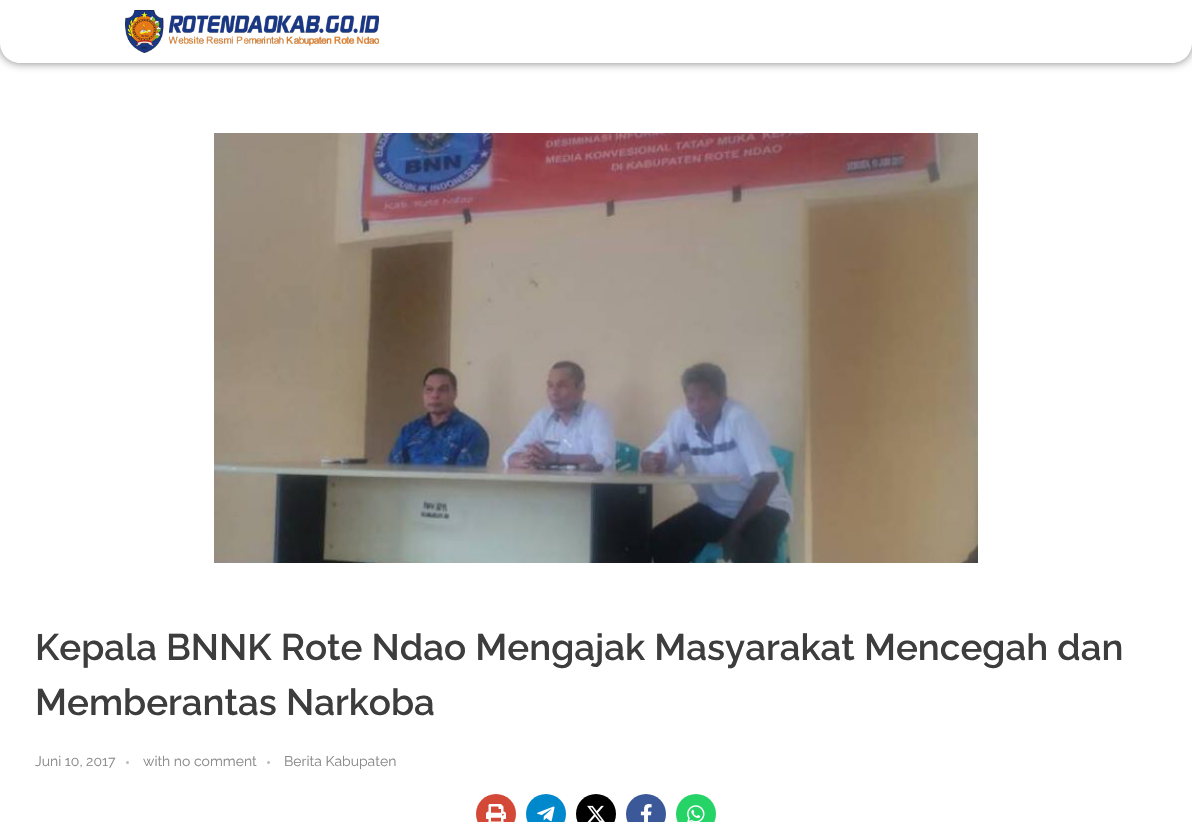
#include "include/core/SkBlurTypes.h"
#include "include/core/SkCanvas.h"
#include "include/core/SkData.h"
#include "include/core/SkFont.h"
#include "include/core/SkFontMgr.h"
#include "include/core/SkImage.h"
#include "include/core/SkMaskFilter.h"
#include "include/core/SkPaint.h"
#include "include/core/SkPathBuilder.h"
#include "include/core/SkTextBlob.h"
#include "include/effects/SkDashPathEffect.h"
#include "include/effects/SkGradientShader.h"
#include "include/utils/SkParsePath.h"

extern sk_sp<SkFontMgr> fontMgr;

static SkFont font(const char* family, int weight, float size, bool italic = false) {
    SkFontStyle style(weight, SkFontStyle::kNormal_Width,
        italic ? SkFontStyle::kItalic_Slant : SkFontStyle::kUpright_Slant);
    SkFont result(fontMgr->matchFamilyStyle(family, style), size);
    result.setSubpixel(true);
    return result;
}

static void drawLabel(SkCanvas* canvas, const char* s, float x, float y, const SkFont& font, SkColor color) {
    SkPaint ink(SkColor4f::FromColor(color));
    ink.setAntiAlias(true);
    canvas->drawString(s, x, y, font, ink);
}

static void drawPhoto(SkCanvas* canvas, const char* path, float x, float y, float w, float h) {
    auto image = SkImages::DeferredFromEncodedData(SkData::MakeFromFileName(path));
    canvas->drawImageRect(image, SkRect::MakeXYWH(x, y, w, h), SkSamplingOptions());
}

static SkPath parsePath(const char* data, bool evenOdd = false) {
    SkPath result = *SkParsePath::FromSVGString(data);
    if (evenOdd) result.setFillType(SkPathFillType::kEvenOdd);
    return result;
}

void draw(SkCanvas* canvas) {
    SkPaint paint;
    paint.setAntiAlias(true);
    canvas->clear(0xFFFFFFFF);
    paint.setColor(0x80000000);
    paint.setMaskFilter(SkMaskFilter::MakeBlur(kNormal_SkBlurStyle, 5));
    canvas->drawRoundRect(SkRect::MakeXYWH(0, 0, 1192, 63), 20, 20, paint);
    paint.setMaskFilter(nullptr);
    paint.setColor(0xFFFFFFFF);
    canvas->drawPath(parsePath("M0 0H1192V43C1192 54 1183 63 1172 63H20C9 63 0 54 0 43Z"), paint);
    drawPhoto(canvas, "assets/img1.png", 125, 10, 254, 43);
    drawPhoto(canvas, "assets/img2.png", 214, 133, 764, 430);
    SkFont font1 = font("Raleway", 600, 36.8f);
    drawLabel(canvas, "Kepala BNNK Rote Ndao Mengajak Masyarakat Mencegah dan", 35, 660, font1, 0xFF3D3D3D);
    drawLabel(canvas, "Memberantas Narkoba", 35, 715, font1, 0xFF3D3D3D);
    SkFont font2 = font("Raleway", 400, 14);
    drawLabel(canvas, "Juni 10, 2017", 35, 766, font2, 0xFF888888);
    paint.setColor(0xFFBBBBBB);
    canvas->drawCircle(127.5f, 762.5f, 1.5f, paint);
    drawLabel(canvas, "with no comment", 143, 766, font2, 0xFF888888);
    canvas->drawCircle(268.5f, 762.5f, 1.5f, paint);
    drawLabel(canvas, "Berita Kabupaten", 284, 766, font2, 0xFF888888);
    paint.setColor(0xFFD34836);
    canvas->drawCircle(496, 814, 20, paint);
    drawPhoto(canvas, "assets/img3.png", 486, 804, 20, 18);
    paint.setColor(0xFF0088CC);
    canvas->drawCircle(546, 814, 20, paint);
    drawPhoto(canvas, "assets/img4.png", 537, 806, 18, 16);
    paint.setColor(0xFF000000);
    canvas->drawCircle(596, 814, 20, paint);
    drawPhoto(canvas, "assets/img5.png", 587, 805, 18, 17);
    paint.setColor(0xFF3B5998);
    canvas->drawCircle(646, 814, 20, paint);
    drawPhoto(canvas, "assets/img6.png", 640, 804, 12, 18);
    paint.setColor(0xFF25D366);
    canvas->drawCircle(696, 814, 20, paint);
    drawPhoto(canvas, "assets/img7.png", 687, 805, 18, 17);
}
